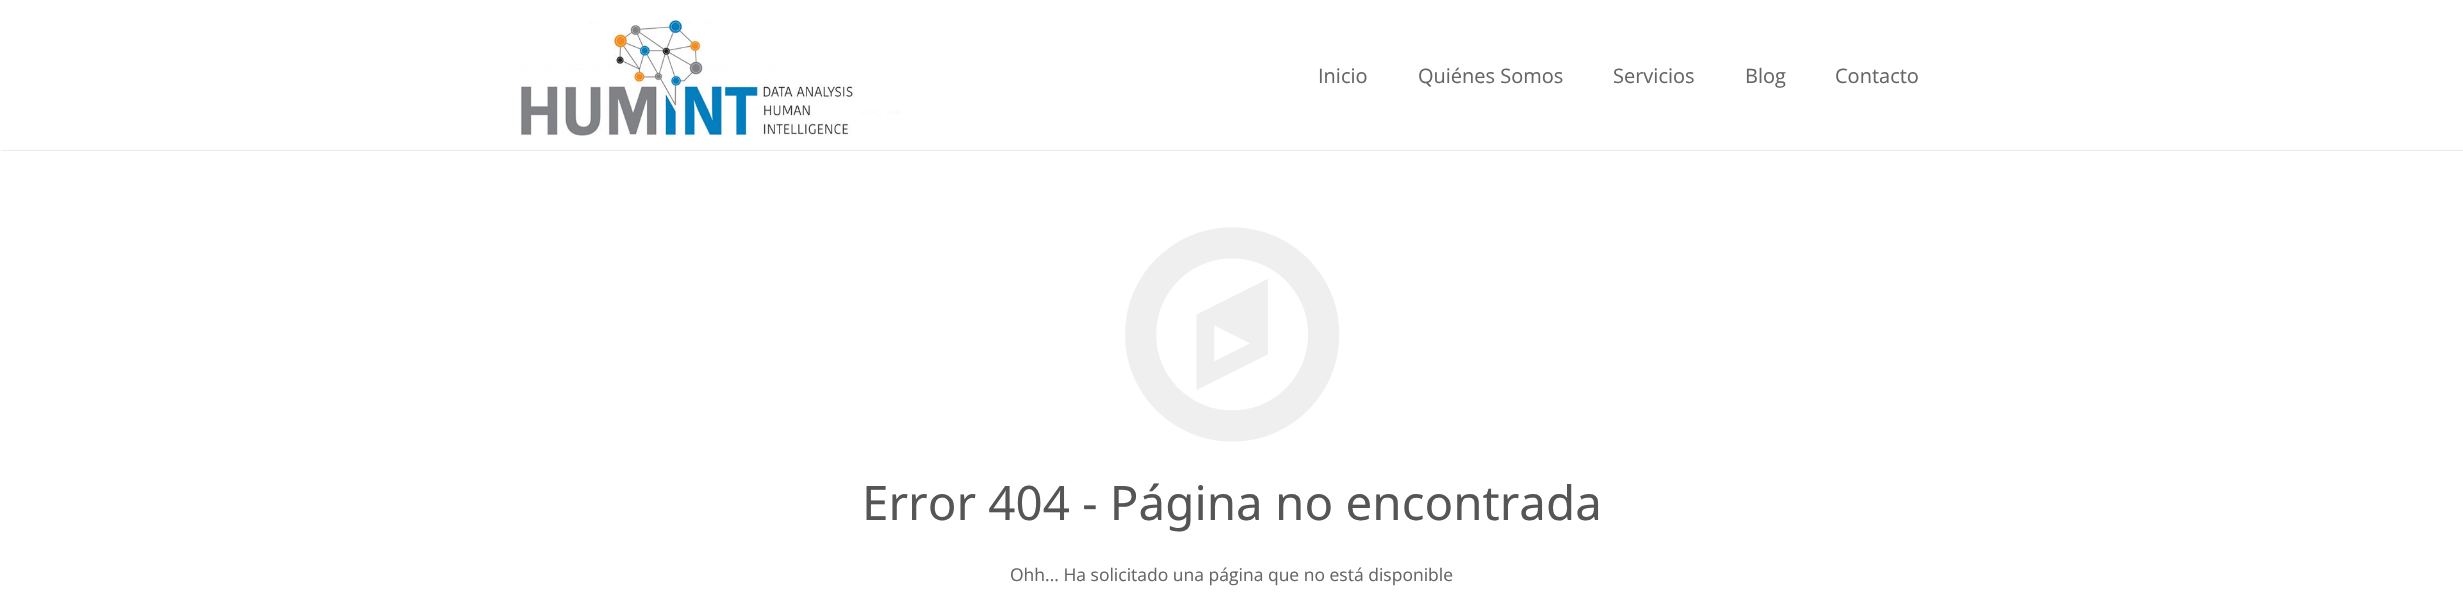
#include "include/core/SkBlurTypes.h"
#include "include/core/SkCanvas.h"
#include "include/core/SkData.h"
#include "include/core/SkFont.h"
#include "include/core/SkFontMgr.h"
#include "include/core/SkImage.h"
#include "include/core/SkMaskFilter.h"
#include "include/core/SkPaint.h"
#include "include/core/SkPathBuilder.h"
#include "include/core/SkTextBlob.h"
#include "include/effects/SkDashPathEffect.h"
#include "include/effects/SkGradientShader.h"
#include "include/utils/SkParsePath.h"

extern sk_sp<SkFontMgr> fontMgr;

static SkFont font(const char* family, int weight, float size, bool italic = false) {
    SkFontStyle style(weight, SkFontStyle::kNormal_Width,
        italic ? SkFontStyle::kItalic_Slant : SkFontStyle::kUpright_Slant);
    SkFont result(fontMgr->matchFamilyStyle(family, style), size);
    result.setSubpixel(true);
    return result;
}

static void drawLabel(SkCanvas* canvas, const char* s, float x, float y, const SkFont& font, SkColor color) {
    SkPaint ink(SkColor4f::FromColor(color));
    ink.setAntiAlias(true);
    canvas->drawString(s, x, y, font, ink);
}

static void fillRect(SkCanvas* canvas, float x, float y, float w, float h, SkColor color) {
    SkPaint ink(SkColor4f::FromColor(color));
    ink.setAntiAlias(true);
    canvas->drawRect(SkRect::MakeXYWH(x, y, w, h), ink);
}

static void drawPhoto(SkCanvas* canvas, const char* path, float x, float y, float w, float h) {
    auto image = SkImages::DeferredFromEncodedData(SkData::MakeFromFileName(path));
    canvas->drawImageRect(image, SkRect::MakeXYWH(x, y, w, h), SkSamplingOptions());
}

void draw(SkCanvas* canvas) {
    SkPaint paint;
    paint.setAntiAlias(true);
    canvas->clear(0xFFFFFFFF);
    fillRect(canvas, 1, 150, 2462, 1, 0xFFEBEBEB);
    drawPhoto(canvas, "assets/img1.png", 520, 19, 381, 118);
    SkFont font1 = font("Open Sans", 400, 20);
    drawLabel(canvas, "Inicio", 1318, 83, font1, 0xFF666666);
    drawLabel(canvas, "Quiénes Somos", 1418, 83, font1, 0xFF666666);
    drawLabel(canvas, "Servicios", 1613, 83, font1, 0xFF666666);
    drawLabel(canvas, "Blog", 1745, 83, font1, 0xFF666666);
    drawLabel(canvas, "Contacto", 1835, 83, font1, 0xFF666666);
    drawPhoto(canvas, "assets/img2.png", 1125, 227, 215, 215);
    SkFont font2 = font("Noto Sans", 400, 47.5f);
    drawLabel(canvas, "Error 404 - Página no encontrada", 862, 520, font2, 0xFF555555);
    SkFont font3 = font("Open Sans", 400, 17.5f);
    drawLabel(canvas, "Ohh... Ha solicitado una página que no está disponible", 1010, 581, font3, 0xFF666666);
}
